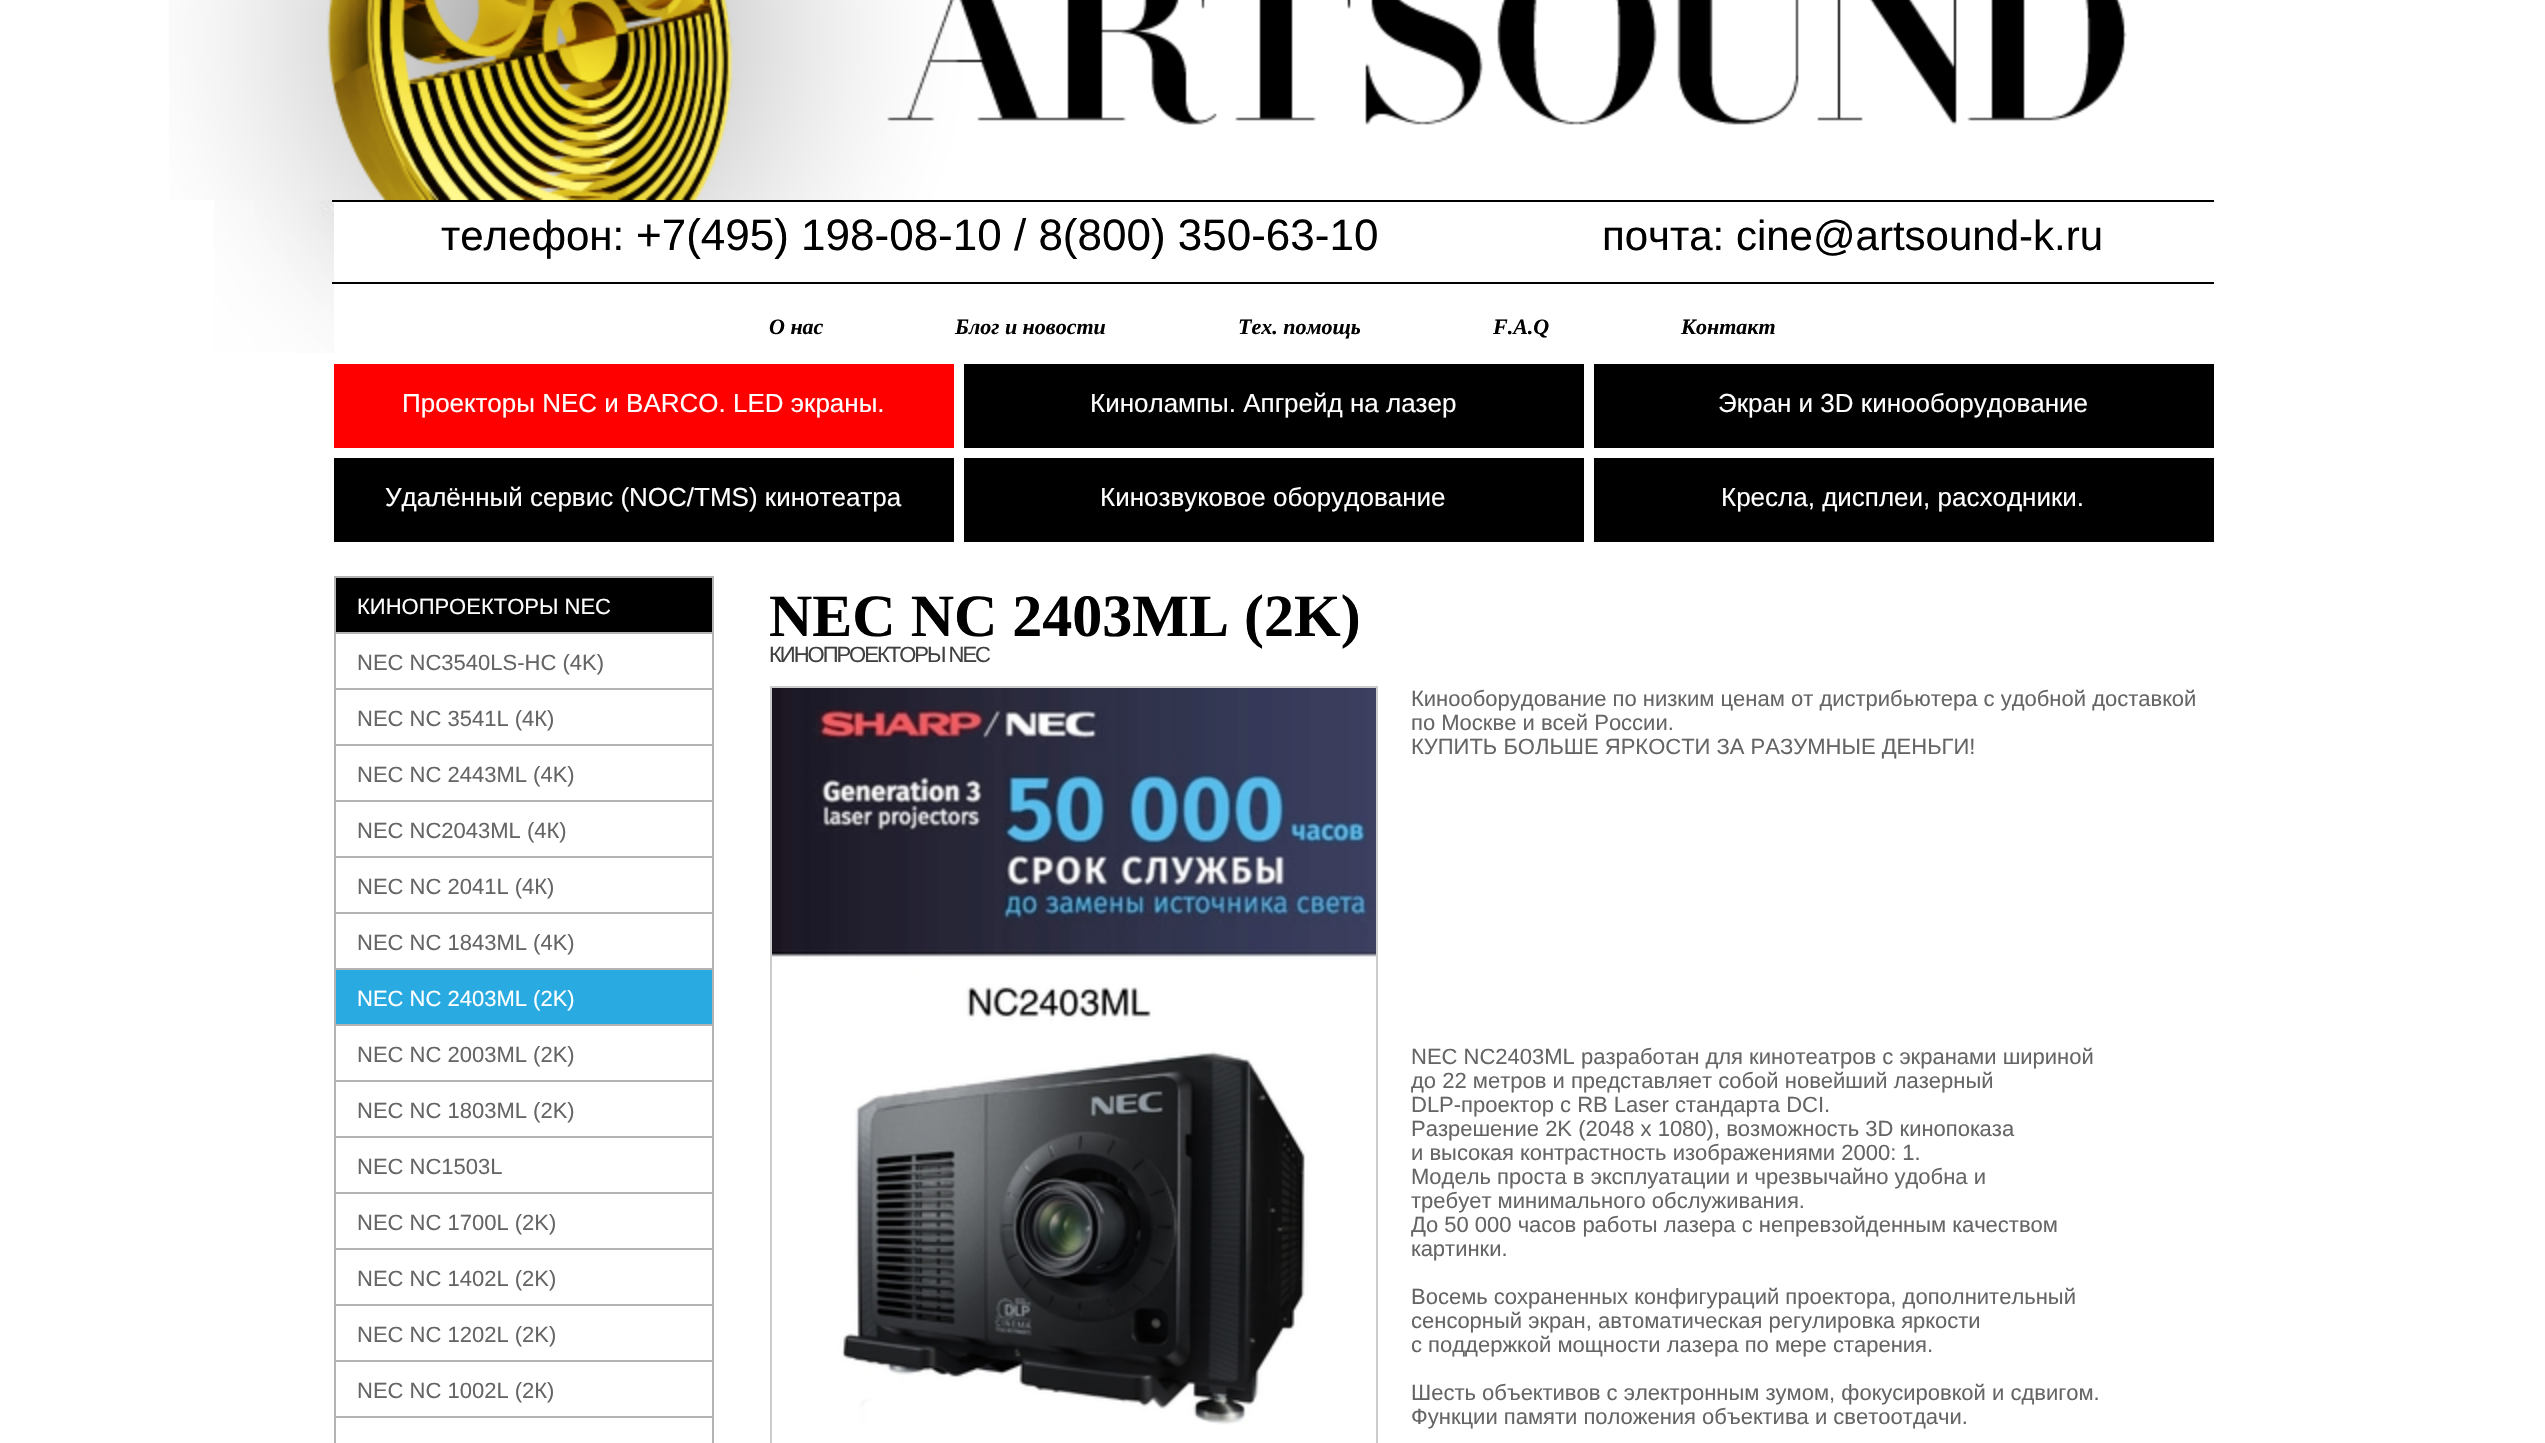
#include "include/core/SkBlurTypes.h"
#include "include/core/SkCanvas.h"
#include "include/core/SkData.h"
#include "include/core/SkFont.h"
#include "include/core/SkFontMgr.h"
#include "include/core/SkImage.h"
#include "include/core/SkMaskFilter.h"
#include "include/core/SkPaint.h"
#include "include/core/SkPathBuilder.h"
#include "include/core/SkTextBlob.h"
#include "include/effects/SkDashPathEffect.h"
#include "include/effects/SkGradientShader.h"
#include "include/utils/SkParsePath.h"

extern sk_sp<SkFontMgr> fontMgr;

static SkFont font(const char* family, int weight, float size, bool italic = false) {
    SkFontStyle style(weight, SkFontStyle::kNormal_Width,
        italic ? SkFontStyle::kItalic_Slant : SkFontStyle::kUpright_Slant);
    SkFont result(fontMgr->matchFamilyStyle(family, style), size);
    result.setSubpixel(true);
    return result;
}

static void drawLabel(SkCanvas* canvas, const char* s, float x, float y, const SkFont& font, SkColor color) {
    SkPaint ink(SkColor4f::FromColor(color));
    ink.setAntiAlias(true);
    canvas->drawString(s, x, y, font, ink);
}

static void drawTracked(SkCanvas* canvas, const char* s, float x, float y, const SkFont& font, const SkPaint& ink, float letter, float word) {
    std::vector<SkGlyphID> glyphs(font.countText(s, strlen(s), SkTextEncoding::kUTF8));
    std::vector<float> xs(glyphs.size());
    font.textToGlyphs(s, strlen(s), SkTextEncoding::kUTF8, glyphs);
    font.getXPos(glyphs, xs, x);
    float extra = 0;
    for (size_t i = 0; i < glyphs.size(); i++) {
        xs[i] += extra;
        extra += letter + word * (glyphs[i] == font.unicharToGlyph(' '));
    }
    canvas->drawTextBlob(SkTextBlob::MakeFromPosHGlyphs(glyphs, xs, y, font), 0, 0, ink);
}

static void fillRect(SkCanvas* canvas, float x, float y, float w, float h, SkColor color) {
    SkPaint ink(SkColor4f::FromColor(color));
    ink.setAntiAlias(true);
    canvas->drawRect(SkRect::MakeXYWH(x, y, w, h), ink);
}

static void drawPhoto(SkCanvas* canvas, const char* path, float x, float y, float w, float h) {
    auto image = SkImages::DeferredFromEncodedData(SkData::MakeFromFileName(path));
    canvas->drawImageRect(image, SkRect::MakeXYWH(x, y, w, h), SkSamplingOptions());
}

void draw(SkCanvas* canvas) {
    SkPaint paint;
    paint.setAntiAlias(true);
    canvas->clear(0xFFFFFFFF);
    drawPhoto(canvas, "assets/img1.png", 169, 0, 1958, 200);
    drawPhoto(canvas, "assets/img2.png", 214, 200, 120, 153);
    fillRect(canvas, 332, 200, 1882, 2, 0xFF000000);
    SkFont font1 = font("Liberation Sans", 400, 42);
    drawLabel(canvas, "телефон:", 441, 250, font1, 0xFF000000);
    SkFont font2 = font("Liberation Sans", 400, 44);
    drawLabel(canvas, "+7(495) 198-08-10 / 8(800) 350-63-10", 636, 250, font2, 0xFF000000);
    drawLabel(canvas, "почта: cine@artsound-k.ru", 1602, 250, font1, 0xFF000000);
    fillRect(canvas, 332, 282, 1882, 2, 0xFF000000);
    SkFont font3 = font("Liberation Serif", 700, 22, true);
    drawLabel(canvas, "О нас", 769, 334, font3, 0xFF000000);
    drawLabel(canvas, "Блог и новости", 955, 334, font3, 0xFF000000);
    drawLabel(canvas, "Тех. помощь", 1238, 334, font3, 0xFF000000);
    drawLabel(canvas, "F.A.Q", 1493, 334, font3, 0xFF000000);
    drawLabel(canvas, "Контакт", 1681, 334, font3, 0xFF000000);
    fillRect(canvas, 334, 364, 620, 84, 0xFFFF0000);
    SkFont font4 = font("Liberation Sans", 400, 26);
    drawLabel(canvas, "Проекторы NEC и BARCO. LED экраны.", 402, 412, font4, 0xFFFFFFFF);
    fillRect(canvas, 964, 364, 620, 84, 0xFF000000);
    drawLabel(canvas, "Кинолампы. Апгрейд на лазер", 1090, 412, font4, 0xFFFFFFFF);
    fillRect(canvas, 1594, 364, 620, 84, 0xFF000000);
    drawLabel(canvas, "Экран и 3D кинооборудование", 1718, 412, font4, 0xFFFFFFFF);
    fillRect(canvas, 334, 458, 620, 84, 0xFF000000);
    drawLabel(canvas, "Удалённый сервис (NOC/TMS) кинотеатра", 385, 506, font4, 0xFFFFFFFF);
    fillRect(canvas, 964, 458, 620, 84, 0xFF000000);
    drawLabel(canvas, "Кинозвуковое оборудование", 1100, 506, font4, 0xFFFFFFFF);
    fillRect(canvas, 1594, 458, 620, 84, 0xFF000000);
    drawLabel(canvas, "Кресла, дисплеи, расходники.", 1721, 506, font4, 0xFFFFFFFF);
    fillRect(canvas, 336, 578, 376, 54, 0xFF000000);
    fillRect(canvas, 334, 576, 380, 2, 0xFFB3B3B3);
    fillRect(canvas, 712, 576, 2, 56, 0xFFB3B3B3);
    fillRect(canvas, 334, 576, 2, 56, 0xFFB3B3B3);
    SkFont font5 = font("Liberation Sans", 400, 22);
    drawLabel(canvas, "КИНОПРОЕКТОРЫ NEC", 357, 614, font5, 0xFFFFFFFF);
    fillRect(canvas, 334, 632, 380, 2, 0xFFB3B3B3);
    fillRect(canvas, 712, 632, 2, 56, 0xFFB3B3B3);
    fillRect(canvas, 334, 632, 2, 56, 0xFFB3B3B3);
    drawLabel(canvas, "NEC NC3540LS-HC (4K)", 357, 670, font5, 0xFF656565);
    fillRect(canvas, 334, 688, 380, 2, 0xFFB3B3B3);
    fillRect(canvas, 712, 688, 2, 56, 0xFFB3B3B3);
    fillRect(canvas, 334, 688, 2, 56, 0xFFB3B3B3);
    drawLabel(canvas, "NEC NC 3541L (4К)", 357, 726, font5, 0xFF656565);
    fillRect(canvas, 334, 744, 380, 2, 0xFFB3B3B3);
    fillRect(canvas, 712, 744, 2, 56, 0xFFB3B3B3);
    fillRect(canvas, 334, 744, 2, 56, 0xFFB3B3B3);
    drawLabel(canvas, "NEC NC 2443ML (4K)", 357, 782, font5, 0xFF656565);
    fillRect(canvas, 334, 800, 380, 2, 0xFFB3B3B3);
    fillRect(canvas, 712, 800, 2, 56, 0xFFB3B3B3);
    fillRect(canvas, 334, 800, 2, 56, 0xFFB3B3B3);
    drawLabel(canvas, "NEC NC2043ML (4К)", 357, 838, font5, 0xFF656565);
    fillRect(canvas, 334, 856, 380, 2, 0xFFB3B3B3);
    fillRect(canvas, 712, 856, 2, 56, 0xFFB3B3B3);
    fillRect(canvas, 334, 856, 2, 56, 0xFFB3B3B3);
    drawLabel(canvas, "NEC NC 2041L (4К)", 357, 894, font5, 0xFF656565);
    fillRect(canvas, 334, 912, 380, 2, 0xFFB3B3B3);
    fillRect(canvas, 712, 912, 2, 56, 0xFFB3B3B3);
    fillRect(canvas, 334, 912, 2, 56, 0xFFB3B3B3);
    drawLabel(canvas, "NEC NC 1843ML (4K)", 357, 950, font5, 0xFF656565);
    fillRect(canvas, 336, 970, 376, 54, 0xFF29ABE2);
    fillRect(canvas, 334, 968, 380, 2, 0xFFB3B3B3);
    fillRect(canvas, 712, 968, 2, 56, 0xFFB3B3B3);
    fillRect(canvas, 334, 968, 2, 56, 0xFFB3B3B3);
    drawLabel(canvas, "NEC NC 2403ML (2K)", 357, 1006, font5, 0xFFFFFFFF);
    fillRect(canvas, 334, 1024, 380, 2, 0xFFB3B3B3);
    fillRect(canvas, 712, 1024, 2, 56, 0xFFB3B3B3);
    fillRect(canvas, 334, 1024, 2, 56, 0xFFB3B3B3);
    drawLabel(canvas, "NEC NC 2003ML (2K)", 357, 1062, font5, 0xFF656565);
    fillRect(canvas, 334, 1080, 380, 2, 0xFFB3B3B3);
    fillRect(canvas, 712, 1080, 2, 56, 0xFFB3B3B3);
    fillRect(canvas, 334, 1080, 2, 56, 0xFFB3B3B3);
    drawLabel(canvas, "NEC NC 1803ML (2K)", 357, 1118, font5, 0xFF656565);
    fillRect(canvas, 334, 1136, 380, 2, 0xFFB3B3B3);
    fillRect(canvas, 712, 1136, 2, 56, 0xFFB3B3B3);
    fillRect(canvas, 334, 1136, 2, 56, 0xFFB3B3B3);
    drawLabel(canvas, "NEC NC1503L", 357, 1174, font5, 0xFF656565);
    fillRect(canvas, 334, 1192, 380, 2, 0xFFB3B3B3);
    fillRect(canvas, 712, 1192, 2, 56, 0xFFB3B3B3);
    fillRect(canvas, 334, 1192, 2, 56, 0xFFB3B3B3);
    drawLabel(canvas, "NEC NC 1700L (2K)", 357, 1230, font5, 0xFF656565);
    fillRect(canvas, 334, 1248, 380, 2, 0xFFB3B3B3);
    fillRect(canvas, 712, 1248, 2, 56, 0xFFB3B3B3);
    fillRect(canvas, 334, 1248, 2, 56, 0xFFB3B3B3);
    drawLabel(canvas, "NEC NC 1402L (2K)", 357, 1286, font5, 0xFF656565);
    fillRect(canvas, 334, 1304, 380, 2, 0xFFB3B3B3);
    fillRect(canvas, 712, 1304, 2, 56, 0xFFB3B3B3);
    fillRect(canvas, 334, 1304, 2, 56, 0xFFB3B3B3);
    drawLabel(canvas, "NEC NC 1202L (2K)", 357, 1342, font5, 0xFF656565);
    fillRect(canvas, 334, 1360, 380, 2, 0xFFB3B3B3);
    fillRect(canvas, 712, 1360, 2, 56, 0xFFB3B3B3);
    fillRect(canvas, 334, 1360, 2, 56, 0xFFB3B3B3);
    drawLabel(canvas, "NEC NC 1002L (2К)", 357, 1398, font5, 0xFF656565);
    fillRect(canvas, 334, 1416, 380, 2, 0xFFB3B3B3);
    fillRect(canvas, 712, 1416, 2, 27, 0xFFB3B3B3);
    fillRect(canvas, 334, 1416, 2, 27, 0xFFB3B3B3);
    SkFont font6 = font("Liberation Serif", 700, 60);
    drawLabel(canvas, "NEC NC 2403ML (2K)", 769, 636, font6, 0xFF000000);
    paint.setColor(0xFF404040);
    drawTracked(canvas, "КИНОПРОЕКТОРЫ NEC", 769, 662, font5, paint, -2, 0);
    paint.setStroke(true);
    paint.setStrokeWidth(2);
    paint.setColor(0xFFCCCCCC);
    canvas->drawRect(SkRect::MakeXYWH(771, 687, 606, 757), paint);
    drawPhoto(canvas, "assets/img3.png", 772, 688, 604, 737);
    drawLabel(canvas, "Кинооборудование по низким ценам от дистрибьютера с удобной доставкой", 1411, 706, font5, 0xFF656565);
    drawLabel(canvas, "по Москве и всей России.", 1411, 730, font5, 0xFF656565);
    drawLabel(canvas, "КУПИТЬ БОЛЬШЕ ЯРКОСТИ ЗА РАЗУМНЫЕ ДЕНЬГИ!", 1411, 754, font5, 0xFF656565);
    drawLabel(canvas, "NEC NC2403ML разработан для кинотеатров с экранами шириной", 1411, 1064, font5, 0xFF656565);
    drawLabel(canvas, "до 22 метров и представляет собой новейший лазерный", 1411, 1088, font5, 0xFF656565);
    drawLabel(canvas, "DLP-проектор с RB Laser стандарта DCI.", 1411, 1112, font5, 0xFF656565);
    drawLabel(canvas, "Разрешение 2K (2048 x 1080), возможность 3D кинопоказа", 1411, 1136, font5, 0xFF656565);
    drawLabel(canvas, "и высокая контрастность изображениями 2000: 1.", 1411, 1160, font5, 0xFF656565);
    drawLabel(canvas, "Модель проста в эксплуатации и чрезвычайно удобна и", 1411, 1184, font5, 0xFF656565);
    drawLabel(canvas, "требует минимального обслуживания.", 1411, 1208, font5, 0xFF656565);
    drawLabel(canvas, "До 50 000 часов работы лазера с непревзойденным качеством", 1411, 1232, font5, 0xFF656565);
    drawLabel(canvas, "картинки.", 1411, 1256, font5, 0xFF656565);
    drawLabel(canvas, "Восемь сохраненных конфигураций проектора, дополнительный", 1411, 1304, font5, 0xFF656565);
    drawLabel(canvas, "сенсорный экран, автоматическая регулировка яркости", 1411, 1328, font5, 0xFF656565);
    drawLabel(canvas, "с поддержкой мощности лазера по мере старения.", 1411, 1352, font5, 0xFF656565);
    drawLabel(canvas, "Шесть объективов с электронным зумом, фокусировкой и сдвигом.", 1411, 1400, font5, 0xFF656565);
    drawLabel(canvas, "Функции памяти положения объектива и светоотдачи.", 1411, 1424, font5, 0xFF656565);
}
